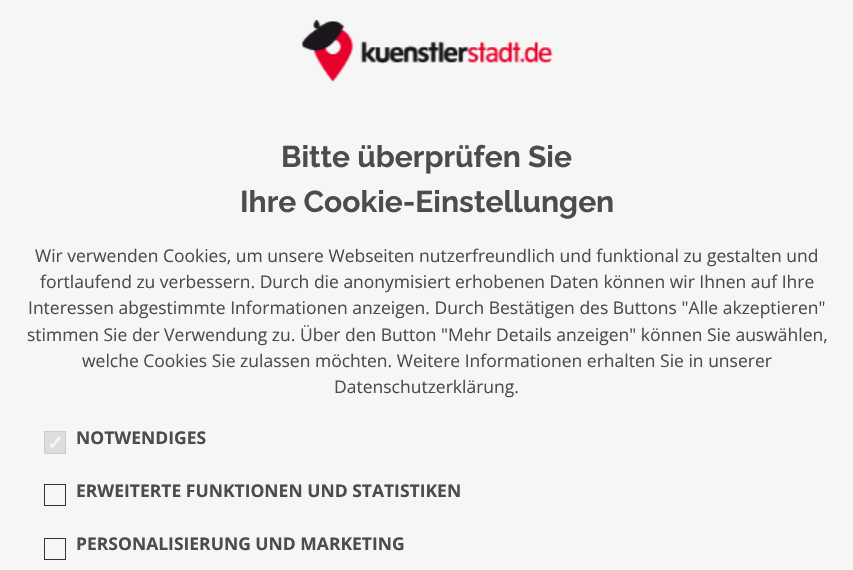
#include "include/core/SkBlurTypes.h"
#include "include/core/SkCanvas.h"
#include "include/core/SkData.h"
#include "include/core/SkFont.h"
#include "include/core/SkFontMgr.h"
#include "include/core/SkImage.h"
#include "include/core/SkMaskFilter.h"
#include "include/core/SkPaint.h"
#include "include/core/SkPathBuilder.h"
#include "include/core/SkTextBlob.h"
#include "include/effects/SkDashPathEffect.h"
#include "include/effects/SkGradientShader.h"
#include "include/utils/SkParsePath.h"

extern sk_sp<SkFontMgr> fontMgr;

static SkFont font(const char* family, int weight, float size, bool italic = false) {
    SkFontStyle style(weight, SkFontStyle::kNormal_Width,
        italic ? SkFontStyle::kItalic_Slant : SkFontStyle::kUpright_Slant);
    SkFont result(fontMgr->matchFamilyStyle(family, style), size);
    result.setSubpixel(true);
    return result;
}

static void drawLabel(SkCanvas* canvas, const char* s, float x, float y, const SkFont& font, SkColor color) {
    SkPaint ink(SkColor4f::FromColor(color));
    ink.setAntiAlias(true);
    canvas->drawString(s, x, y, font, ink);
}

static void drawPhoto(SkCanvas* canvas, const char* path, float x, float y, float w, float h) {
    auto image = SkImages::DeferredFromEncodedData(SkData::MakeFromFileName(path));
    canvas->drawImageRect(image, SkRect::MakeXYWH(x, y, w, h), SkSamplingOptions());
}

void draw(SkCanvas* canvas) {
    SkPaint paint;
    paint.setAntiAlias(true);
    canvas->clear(0xFFF6F6F6);
    drawPhoto(canvas, "assets/img1.png", 302, 20, 251, 62);
    SkFont font1 = font("Raleway", 700, 30);
    drawLabel(canvas, "Bitte überprüfen Sie", 281, 167, font1, 0xFF4C4C4C);
    drawLabel(canvas, "Ihre Cookie-Einstellungen", 240, 212, font1, 0xFF4C4C4C);
    SkFont font2 = font("Open Sans", 400, 17.5f);
    drawLabel(canvas, "Wir verwenden Cookies, um unsere Webseiten nutzerfreundlich und funktional zu gestalten und", 35, 262, font2, 0xFF4C4C4C);
    drawLabel(canvas, "fortlaufend zu verbessern. Durch die anonymisiert erhobenen Daten können wir Ihnen auf Ihre", 40, 288, font2, 0xFF4C4C4C);
    drawLabel(canvas, "Interessen abgestimmte Informationen anzeigen. Durch Bestätigen des Buttons \"Alle akzeptieren\"", 28, 314, font2, 0xFF4C4C4C);
    drawLabel(canvas, "stimmen Sie der Verwendung zu. Über den Button \"Mehr Details anzeigen\" können Sie auswählen,", 27, 341, font2, 0xFF4C4C4C);
    drawLabel(canvas, "welche Cookies Sie zulassen möchten. Weitere Informationen erhalten Sie in unserer", 82, 367, font2, 0xFF4C4C4C);
    drawLabel(canvas, "Datenschutzerklärung.", 334, 393, font2, 0xFF4C4C4C);
    paint.setColor(0xFFDDDDDD);
    canvas->drawRect(SkRect::MakeXYWH(44.5f, 431.5f, 21, 22), paint);
    paint.setStroke(true);
    paint.setStrokeWidth(1);
    paint.setColor(0xFFCCCCCC);
    canvas->drawRect(SkRect::MakeXYWH(44.5f, 431.5f, 21, 22), paint);
    SkFont font3 = font("DejaVu Sans", 700, 20);
    drawLabel(canvas, "✓", 47, 450, font3, 0xFFF6F6F6);
    SkFont font4 = font("Open Sans", 700, 17.5f);
    drawLabel(canvas, "NOTWENDIGES", 76, 444, font4, 0xFF4C4C4C);
    paint.setColor(0xFF333333);
    canvas->drawRect(SkRect::MakeXYWH(44.5f, 484.5f, 21, 21), paint);
    drawLabel(canvas, "ERWEITERTE FUNKTIONEN UND STATISTIKEN", 76, 497, font4, 0xFF4C4C4C);
    canvas->drawRect(SkRect::MakeXYWH(44.5f, 538.5f, 21, 21), paint);
    drawLabel(canvas, "PERSONALISIERUNG UND MARKETING", 76, 550, font4, 0xFF4C4C4C);
}
